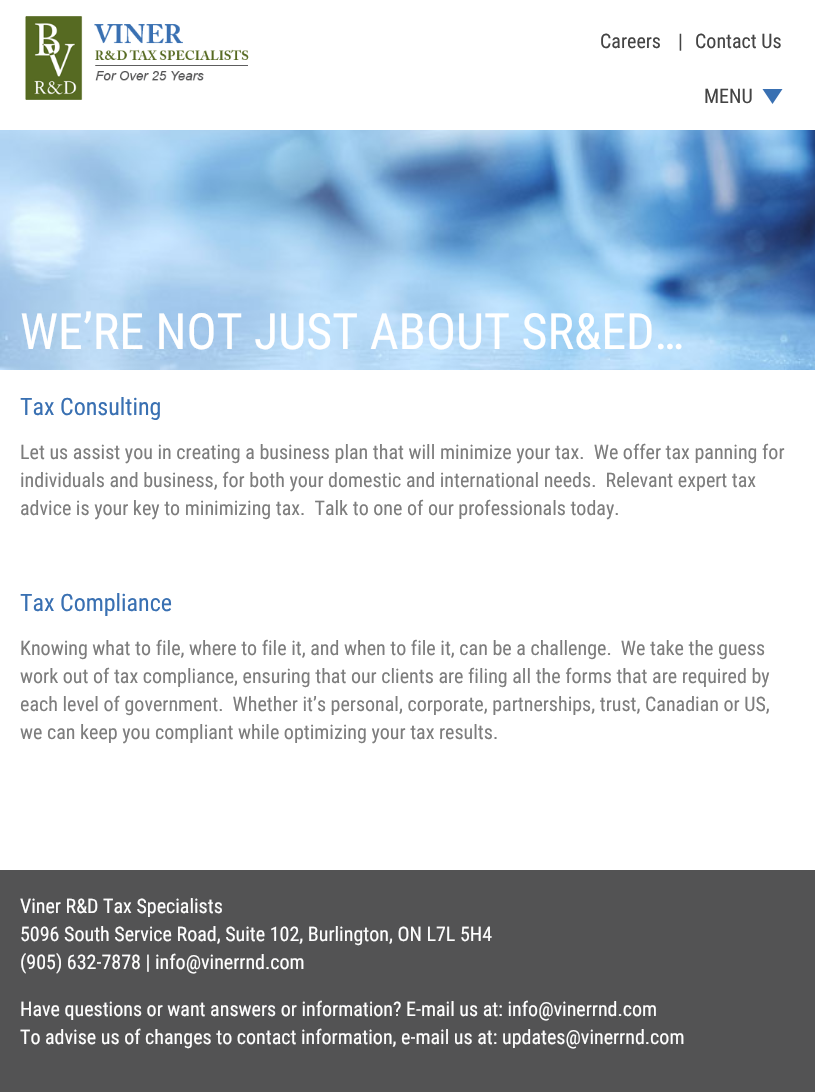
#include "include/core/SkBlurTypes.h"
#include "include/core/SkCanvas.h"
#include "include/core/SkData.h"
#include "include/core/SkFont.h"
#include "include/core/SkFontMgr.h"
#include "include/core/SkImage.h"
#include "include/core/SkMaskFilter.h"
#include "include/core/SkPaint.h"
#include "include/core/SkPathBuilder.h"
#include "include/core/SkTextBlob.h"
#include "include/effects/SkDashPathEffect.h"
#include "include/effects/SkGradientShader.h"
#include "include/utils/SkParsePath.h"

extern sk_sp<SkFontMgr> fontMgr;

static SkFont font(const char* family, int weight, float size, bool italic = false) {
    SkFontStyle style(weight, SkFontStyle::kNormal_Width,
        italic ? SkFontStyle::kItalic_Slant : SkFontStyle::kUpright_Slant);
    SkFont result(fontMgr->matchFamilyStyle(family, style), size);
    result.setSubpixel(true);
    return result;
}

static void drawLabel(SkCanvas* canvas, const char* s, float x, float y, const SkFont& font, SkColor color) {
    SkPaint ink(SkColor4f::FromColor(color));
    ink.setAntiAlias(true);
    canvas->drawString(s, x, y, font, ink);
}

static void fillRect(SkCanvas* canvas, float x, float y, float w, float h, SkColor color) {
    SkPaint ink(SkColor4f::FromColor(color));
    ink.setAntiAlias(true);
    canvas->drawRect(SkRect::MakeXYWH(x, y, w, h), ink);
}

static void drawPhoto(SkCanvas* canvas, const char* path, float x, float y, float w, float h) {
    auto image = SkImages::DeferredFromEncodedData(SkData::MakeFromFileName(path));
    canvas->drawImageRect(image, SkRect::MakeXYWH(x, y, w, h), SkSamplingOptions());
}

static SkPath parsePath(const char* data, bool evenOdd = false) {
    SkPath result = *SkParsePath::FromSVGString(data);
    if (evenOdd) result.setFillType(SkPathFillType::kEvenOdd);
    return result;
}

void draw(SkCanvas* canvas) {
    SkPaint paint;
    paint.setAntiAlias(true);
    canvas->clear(0xFFFFFFFF);
    drawPhoto(canvas, "assets/img1.png", 25, 16, 224, 84);
    SkFont font1 = font("Roboto Condensed", 400, 20);
    drawLabel(canvas, "Careers", 600, 48, font1, 0xFF444444);
    drawLabel(canvas, "|", 678, 48, font1, 0xFF444444);
    drawLabel(canvas, "Contact Us", 695, 48, font1, 0xFF444444);
    drawLabel(canvas, "MENU", 704, 103, font1, 0xFF444444);
    paint.setColor(0xFF3970B2);
    canvas->drawPath(parsePath("M762.5 89H782.5L772.5 104Z"), paint);
    drawPhoto(canvas, "assets/img2.png", 0, 130, 815, 240);
    SkFont font2 = font("Roboto Condensed", 400, 50);
    drawLabel(canvas, "WE’RE NOT JUST ABOUT SR&ED…", 20, 349, font2, 0xFFFFFFFF);
    SkFont font3 = font("Roboto Condensed", 400, 24);
    drawLabel(canvas, "Tax Consulting", 20, 415, font3, 0xFF3970B2);
    drawLabel(canvas, "Let us assist you in creating a business plan that will minimize your tax.  We offer tax panning for", 20, 459, font1, 0xFF7D7D7D);
    drawLabel(canvas, "individuals and business, for both your domestic and international needs.  Relevant expert tax", 20, 487, font1, 0xFF7D7D7D);
    drawLabel(canvas, "advice is your key to minimizing tax.  Talk to one of our professionals today.", 20, 515, font1, 0xFF7D7D7D);
    drawLabel(canvas, "Tax Compliance", 20, 611, font3, 0xFF3970B2);
    drawLabel(canvas, "Knowing what to file, where to file it, and when to file it, can be a challenge.  We take the guess", 20, 655, font1, 0xFF7D7D7D);
    drawLabel(canvas, "work out of tax compliance, ensuring that our clients are filing all the forms that are required by", 20, 683, font1, 0xFF7D7D7D);
    drawLabel(canvas, "each level of government.  Whether it’s personal, corporate, partnerships, trust, Canadian or US,", 20, 711, font1, 0xFF7D7D7D);
    drawLabel(canvas, "we can keep you compliant while optimizing your tax results.", 20, 739, font1, 0xFF7D7D7D);
    fillRect(canvas, 0, 870, 815, 222, 0xFF535354);
    drawLabel(canvas, "Viner R&D Tax Specialists", 20, 913, font1, 0xFFFFFFFF);
    drawLabel(canvas, "5096 South Service Road, Suite 102, Burlington, ON L7L 5H4", 20, 941, font1, 0xFFFFFFFF);
    drawLabel(canvas, "(905) 632-7878 | info@vinerrnd.com", 20, 969, font1, 0xFFFFFFFF);
    drawLabel(canvas, "Have questions or want answers or information? E-mail us at: info@vinerrnd.com", 20, 1016, font1, 0xFFFFFFFF);
    drawLabel(canvas, "To advise us of changes to contact information, e-mail us at: updates@vinerrnd.com", 20, 1044, font1, 0xFFFFFFFF);
}
